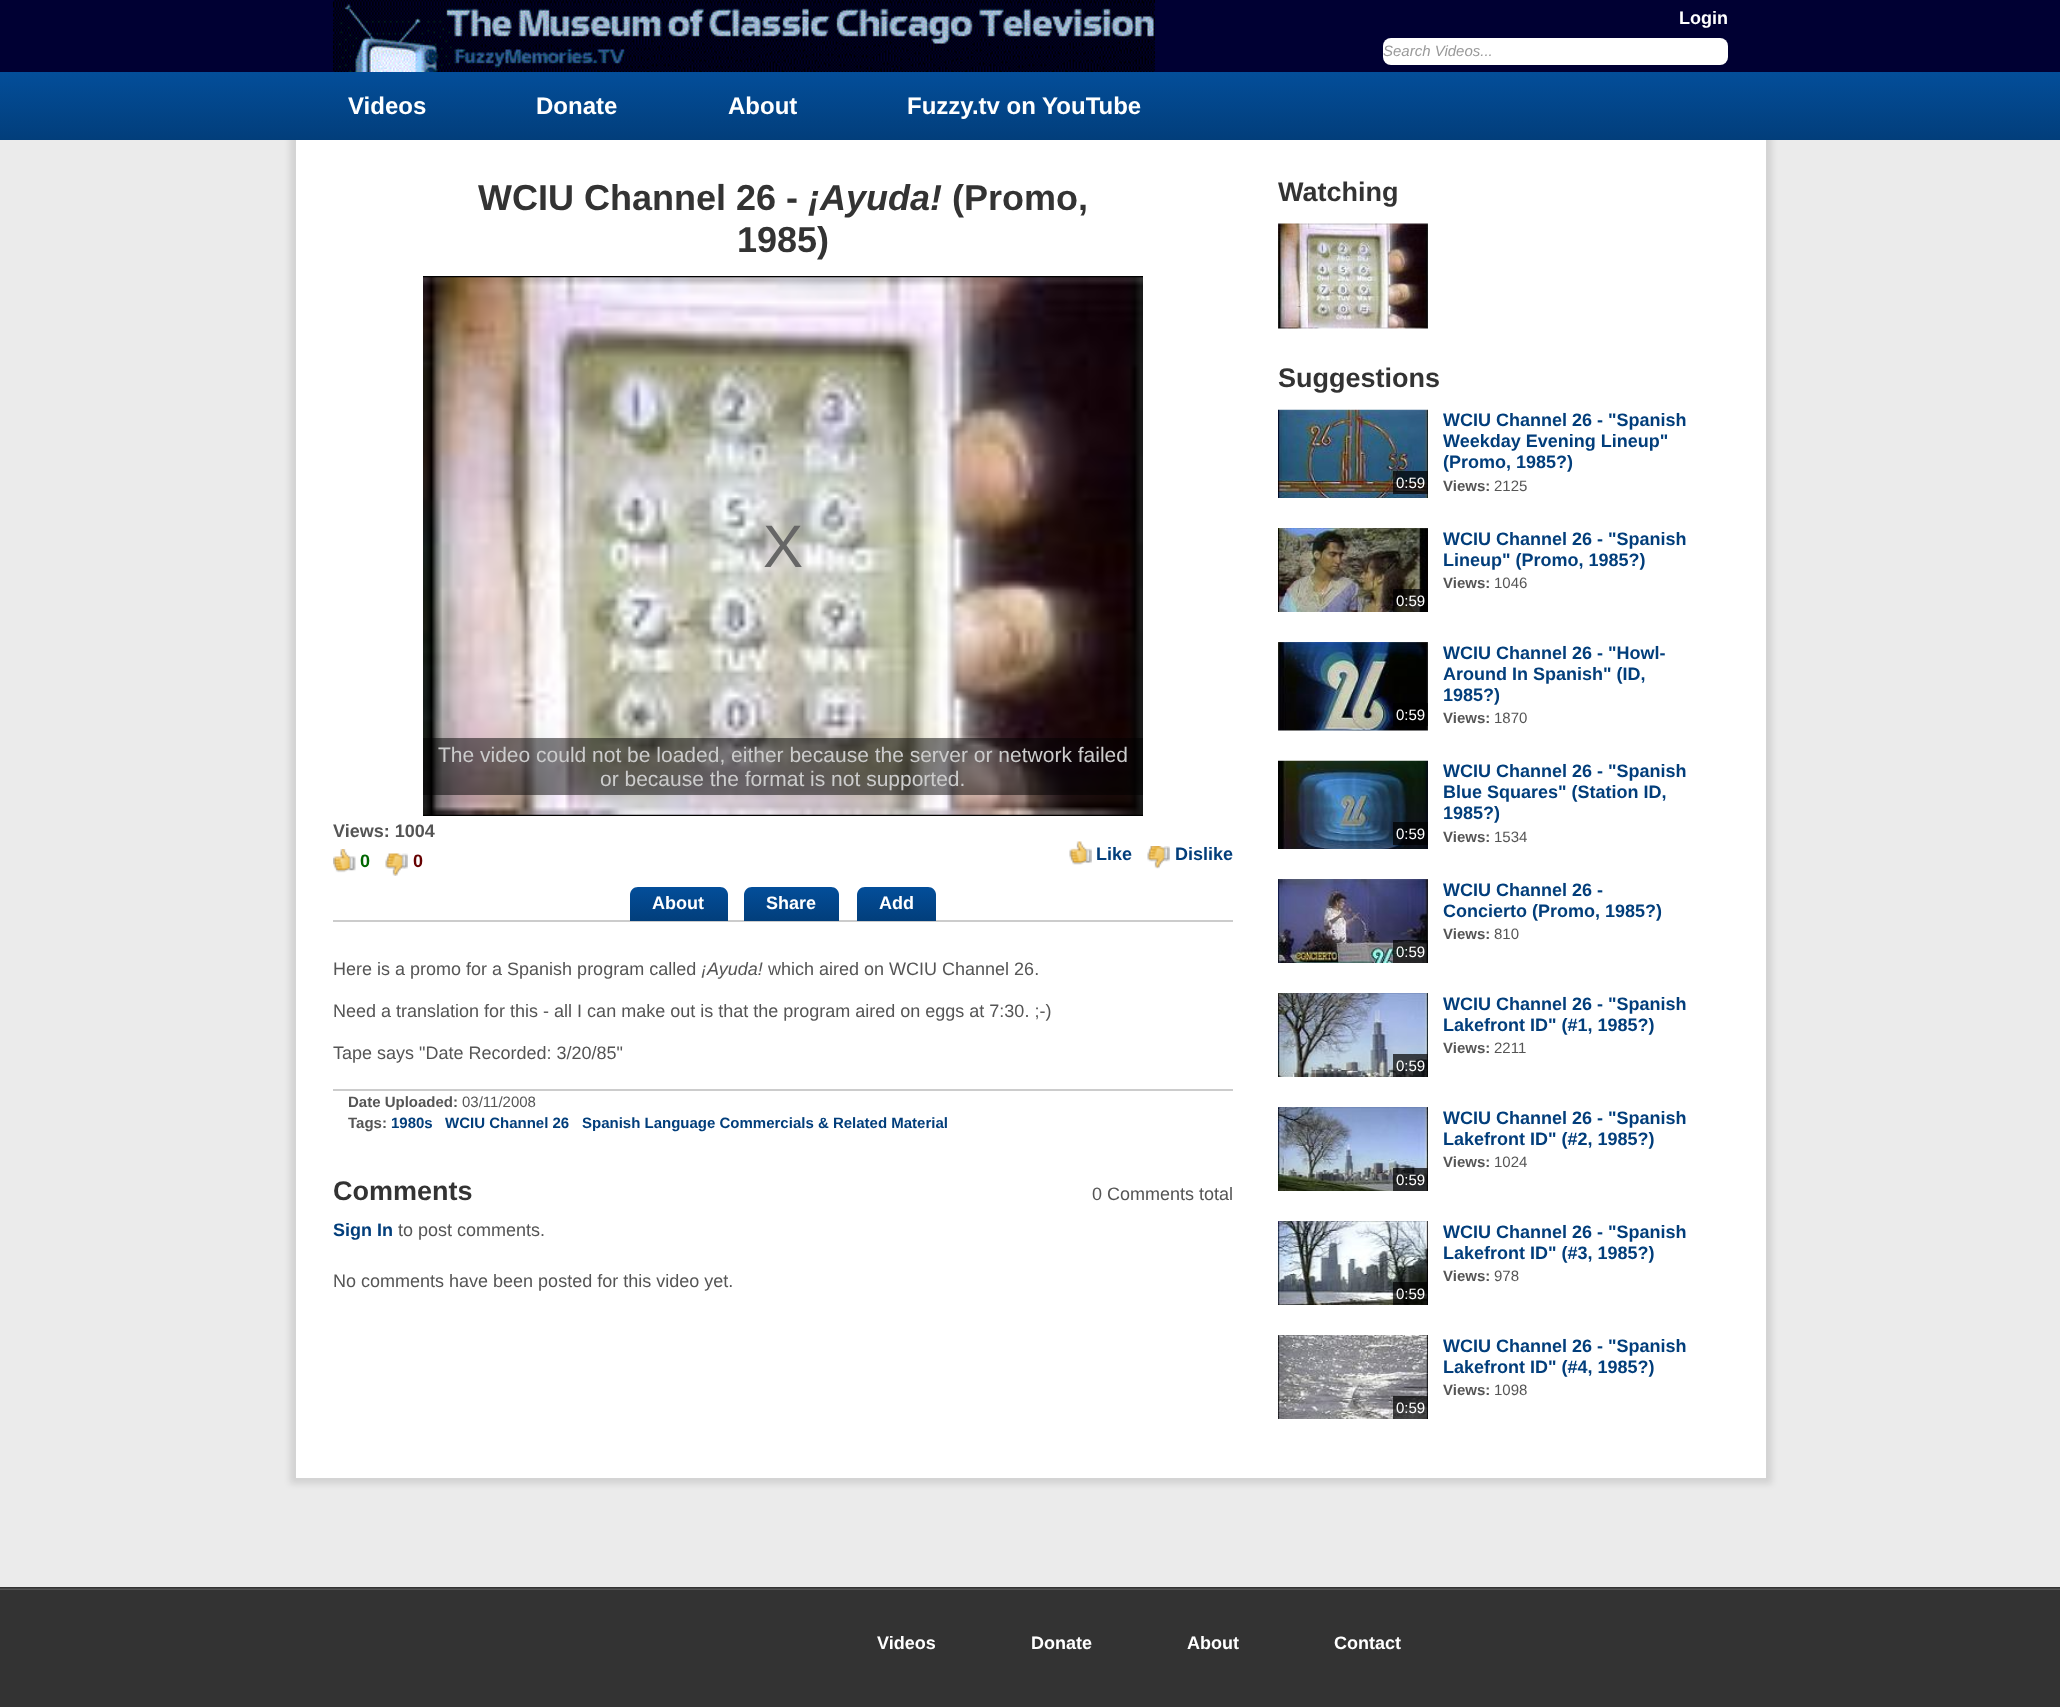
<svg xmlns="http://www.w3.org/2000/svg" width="2060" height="1707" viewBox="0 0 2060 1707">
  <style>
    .t1 { font: bold 18px Liberation Sans; fill: #fff; }
    .t2 { font: italic 15px Liberation Sans; fill: #999; }
    .t3 { font: bold 24px Liberation Sans; fill: #fff; }
    .t4 { font: bold 36px Liberation Sans; fill: #333; }
    .t5 { font: italic bold 36px Liberation Sans; fill: #333; }
    .t6 { font: 60px Liberation Sans; fill: #666; }
    .t7 { font: 21px Liberation Sans; fill: #ccc; }
    .t8 { font: bold 18px Liberation Sans; fill: #555; }
    .t9 { font: bold 18px Liberation Sans; fill: #060; }
    .t10 { font: bold 18px Liberation Sans; fill: #600; }
    .t11 { font: bold 18px Liberation Sans; fill: #023e7b; }
    .t12 { font: 18px Liberation Sans; fill: #555; }
    .t13 { font: italic 18px Liberation Sans; fill: #555; }
    .t14 { font: bold 15px Liberation Sans; fill: #555; }
    .t15 { font: 15px Liberation Sans; fill: #555; }
    .t16 { font: bold 15px Liberation Sans; fill: #023e7b; }
    .t17 { font: bold 27px Liberation Sans; fill: #333; }
    .t18 { font: 15px Liberation Sans; fill: #fff; }
  </style>
  <defs>
    <linearGradient id="g1" gradientUnits="userSpaceOnUse" x1="1031" y1="72" x2="1031" y2="140"><stop offset="0" stop-color="#034e9a"/><stop offset="1" stop-color="#023e7b"/></linearGradient>
    <linearGradient id="g2" gradientUnits="userSpaceOnUse" x1="679" y1="887" x2="679" y2="921"><stop offset="0" stop-color="#034e9a"/><stop offset="1" stop-color="#023e7b"/></linearGradient>
    <linearGradient id="g3" gradientUnits="userSpaceOnUse" x1="791" y1="887" x2="791" y2="921"><stop offset="0" stop-color="#034e9a"/><stop offset="1" stop-color="#023e7b"/></linearGradient>
    <linearGradient id="g4" gradientUnits="userSpaceOnUse" x1="896" y1="887" x2="896" y2="921"><stop offset="0" stop-color="#034e9a"/><stop offset="1" stop-color="#023e7b"/></linearGradient>
  </defs>
  <rect width="100%" height="100%" fill="#ebebeb"/>
  <rect x="0" y="0" width="2060" height="72" fill="#003"/>
  <image x="333" y="0" width="822" height="72" href="images/1.png"/>
  <text x="1679" y="24" class="t1">Login</text>
  <rect x="1383" y="38" width="345" height="27" rx="8" fill="#fff"/>
  <text x="1383" y="56" class="t2">Search Videos...</text>
  <rect x="290" y="126" width="1482" height="1358" fill="#0101011a" filter="blur(3px)"/>
  <rect x="0" y="72" width="2060" height="68" fill="url(#g1)"/>
  <text x="348" y="114" class="t3">Videos</text>
  <text x="536" y="114" class="t3">Donate</text>
  <text x="728" y="114" class="t3">About</text>
  <text x="907" y="114" class="t3">Fuzzy.tv on YouTube</text>
  <rect x="296" y="140" width="1470" height="1338" fill="#fff"/>
  <text x="478" y="210" class="t4">WCIU Channel 26 -</text>
  <text x="808" y="210" class="t5">¡Ayuda!</text>
  <text x="952" y="210" class="t4">(Promo,</text>
  <text x="737" y="252" class="t4">1985)</text>
  <rect x="423" y="276" width="720" height="540" fill="#000"/>
  <image x="423" y="277" width="720" height="538" href="images/2.png"/>
  <image x="423" y="277" width="720" height="538" href="images/3.png"/>
  <text x="763" y="567" class="t6">X</text>
  <rect x="423" y="738" width="720" height="57" fill="#00000080"/>
  <text x="438" y="762" class="t7">The video could not be loaded, either because the server or network failed</text>
  <text x="600" y="786" class="t7">or because the format is not supported.</text>
  <text x="333" y="837" class="t8">Views: 1004</text>
  <image x="333" y="849" width="23" height="24" href="images/4.png"/>
  <text x="360" y="867" class="t9">0</text>
  <image x="385" y="853" width="23" height="23" href="images/5.png"/>
  <text x="413" y="867" class="t10">0</text>
  <image x="1069" y="841" width="23" height="24" href="images/6.png"/>
  <text x="1096" y="860" class="t11">Like</text>
  <image x="1147" y="846" width="23" height="23" href="images/7.png"/>
  <text x="1175" y="860" class="t11">Dislike</text>
  <rect x="333" y="920" width="900" height="2" fill="#ccc"/>
  <path d="M638 887H720C724.5 887 728 890.5 728 895V921H630V895C630 890.5 633.5 887 638 887Z" fill="url(#g2)"/>
  <text x="652" y="909" class="t1">About</text>
  <path d="M752 887H831C835.5 887 839 890.5 839 895V921H744V895C744 890.5 747.5 887 752 887Z" fill="url(#g3)"/>
  <text x="766" y="909" class="t1">Share</text>
  <path d="M865 887H928C932.5 887 936 890.5 936 895V921H857V895C857 890.5 860.5 887 865 887Z" fill="url(#g4)"/>
  <text x="879" y="909" class="t1">Add</text>
  <rect x="333" y="1089" width="900" height="2" fill="#ccc"/>
  <text x="333" y="975" class="t12">Here is a promo for a Spanish program called</text>
  <text x="701" y="975" class="t13">¡Ayuda!</text>
  <text x="768" y="975" class="t12">which aired on WCIU Channel 26.</text>
  <text x="333" y="1017" class="t12">Need a translation for this - all I can make out is that the program aired on eggs at 7:30. ;-)</text>
  <text x="333" y="1059" class="t12">Tape says "Date Recorded: 3/20/85"</text>
  <text x="348" y="1107" class="t14">Date Uploaded:</text>
  <text x="462" y="1107" class="t15">03/11/2008</text>
  <text x="348" y="1128" class="t14">Tags:</text>
  <text x="391" y="1128" class="t16">1980s</text>
  <text x="445" y="1128" class="t16">WCIU Channel 26</text>
  <text x="582" y="1128" class="t16">Spanish Language Commercials &amp; Related Material</text>
  <text x="333" y="1200" class="t17">Comments</text>
  <text x="1092" y="1200" class="t12">0 Comments total</text>
  <text x="333" y="1236" class="t11">Sign In</text>
  <text x="398" y="1236" class="t12">to post comments.</text>
  <text x="333" y="1287" class="t12">No comments have been posted for this video yet.</text>
  <text x="1278" y="201" class="t17">Watching</text>
  <image x="1278" y="223" width="150" height="106" href="images/8.png"/>
  <text x="1278" y="387" class="t17">Suggestions</text>
  <image x="1278" y="409" width="150" height="89" href="images/9.png"/>
  <rect x="1393" y="471" width="35" height="23" fill="#000000b3"/>
  <text x="1396" y="488" class="t18">0:59</text>
  <text x="1443" y="426" class="t11">WCIU Channel 26 - "Spanish</text>
  <text x="1443" y="447" class="t11">Weekday Evening Lineup"</text>
  <text x="1443" y="468" class="t11">(Promo, 1985?)</text>
  <text x="1443" y="491" class="t14">Views:</text>
  <text x="1494" y="491" class="t15">2125</text>
  <text x="1443" y="545" class="t11">WCIU Channel 26 - "Spanish</text>
  <text x="1443" y="566" class="t11">Lineup" (Promo, 1985?)</text>
  <text x="1443" y="588" class="t14">Views:</text>
  <text x="1494" y="588" class="t15">1046</text>
  <image x="1278" y="528" width="150" height="84" href="images/10.png"/>
  <rect x="1393" y="589" width="35" height="23" fill="#000000b3"/>
  <text x="1396" y="606" class="t18">0:59</text>
  <image x="1278" y="642" width="150" height="89" href="images/11.png"/>
  <rect x="1393" y="703" width="35" height="23" fill="#000000b3"/>
  <text x="1396" y="720" class="t18">0:59</text>
  <text x="1443" y="659" class="t11">WCIU Channel 26 - "Howl-</text>
  <text x="1443" y="680" class="t11">Around In Spanish" (ID,</text>
  <text x="1443" y="701" class="t11">1985?)</text>
  <text x="1443" y="723" class="t14">Views:</text>
  <text x="1494" y="723" class="t15">1870</text>
  <image x="1278" y="760" width="150" height="89" href="images/12.png"/>
  <rect x="1393" y="822" width="35" height="23" fill="#000000b3"/>
  <text x="1396" y="839" class="t18">0:59</text>
  <text x="1443" y="777" class="t11">WCIU Channel 26 - "Spanish</text>
  <text x="1443" y="798" class="t11">Blue Squares" (Station ID,</text>
  <text x="1443" y="819" class="t11">1985?)</text>
  <text x="1443" y="842" class="t14">Views:</text>
  <text x="1494" y="842" class="t15">1534</text>
  <text x="1443" y="896" class="t11">WCIU Channel 26 -</text>
  <text x="1443" y="917" class="t11">Concierto (Promo, 1985?)</text>
  <text x="1443" y="939" class="t14">Views:</text>
  <text x="1494" y="939" class="t15">810</text>
  <image x="1278" y="879" width="150" height="84" href="images/13.png"/>
  <rect x="1393" y="940" width="35" height="23" fill="#000000b3"/>
  <text x="1396" y="957" class="t18">0:59</text>
  <text x="1443" y="1010" class="t11">WCIU Channel 26 - "Spanish</text>
  <text x="1443" y="1031" class="t11">Lakefront ID" (#1, 1985?)</text>
  <text x="1443" y="1053" class="t14">Views:</text>
  <text x="1494" y="1053" class="t15">2211</text>
  <image x="1278" y="993" width="150" height="84" href="images/14.png"/>
  <rect x="1393" y="1054" width="35" height="23" fill="#000000b3"/>
  <text x="1396" y="1071" class="t18">0:59</text>
  <text x="1443" y="1124" class="t11">WCIU Channel 26 - "Spanish</text>
  <text x="1443" y="1145" class="t11">Lakefront ID" (#2, 1985?)</text>
  <text x="1443" y="1167" class="t14">Views:</text>
  <text x="1494" y="1167" class="t15">1024</text>
  <image x="1278" y="1107" width="150" height="84" href="images/15.png"/>
  <rect x="1393" y="1168" width="35" height="23" fill="#000000b3"/>
  <text x="1396" y="1185" class="t18">0:59</text>
  <text x="1443" y="1238" class="t11">WCIU Channel 26 - "Spanish</text>
  <text x="1443" y="1259" class="t11">Lakefront ID" (#3, 1985?)</text>
  <text x="1443" y="1281" class="t14">Views:</text>
  <text x="1494" y="1281" class="t15">978</text>
  <image x="1278" y="1221" width="150" height="84" href="images/16.png"/>
  <rect x="1393" y="1282" width="35" height="23" fill="#000000b3"/>
  <text x="1396" y="1299" class="t18">0:59</text>
  <text x="1443" y="1352" class="t11">WCIU Channel 26 - "Spanish</text>
  <text x="1443" y="1373" class="t11">Lakefront ID" (#4, 1985?)</text>
  <text x="1443" y="1395" class="t14">Views:</text>
  <text x="1494" y="1395" class="t15">1098</text>
  <image x="1278" y="1335" width="150" height="84" href="images/17.png"/>
  <rect x="1393" y="1396" width="35" height="23" fill="#000000b3"/>
  <text x="1396" y="1413" class="t18">0:59</text>
  <rect x="0" y="1587" width="2060" height="120" fill="#333"/>
  <image x="0" y="1588" width="2060" height="2" href="images/18.png"/>
  <text x="877" y="1649" class="t1">Videos</text>
  <text x="1031" y="1649" class="t1">Donate</text>
  <text x="1187" y="1649" class="t1">About</text>
  <text x="1334" y="1649" class="t1">Contact</text>
</svg>
